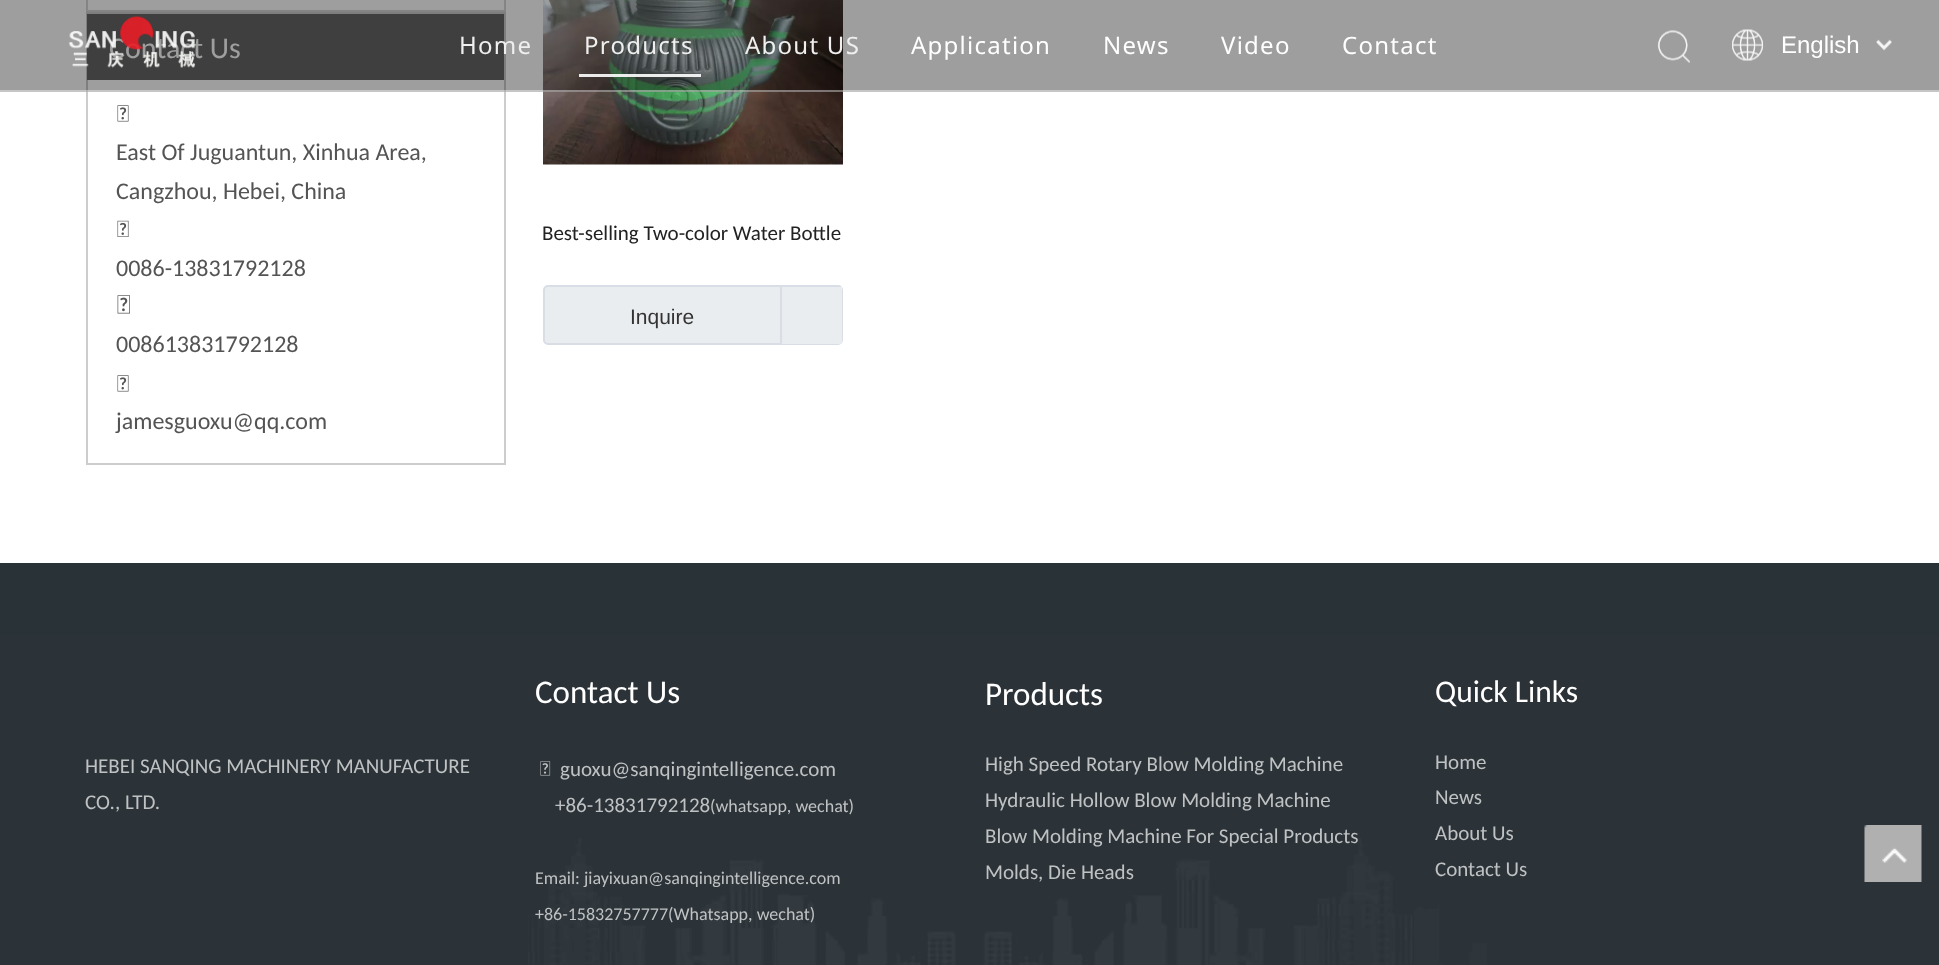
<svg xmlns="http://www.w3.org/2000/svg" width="1939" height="965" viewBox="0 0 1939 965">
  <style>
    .t1 { font: 30px Carlito; fill: #fff; }
    .t2 { font: 24px Noto Sans; letter-spacing: 1.25px; fill: #efefef; }
    .t3 { font: 24px Noto Sans; letter-spacing: 1.25px; fill: #fff; }
    .t4 { font: 24px Liberation Sans; fill: #fff; }
    .t5 { font: 24px Carlito; fill: #545454; }
    .t6 { font: 21px Carlito; fill: #222; }
    .t7 { font: 21px Liberation Sans; fill: #333; }
    .t8 { font: 21px Carlito; fill: #bfc2c3; }
    .t9 { font: 33px Carlito; fill: #fff; }
    .t10 { font: italic 21px Carlito; fill: #bfc2c3; }
    .t11 { font: 18px Carlito; fill: #bfc2c3; }
    .t12 { font: 31.5px Carlito; fill: #fff; }
  </style>
  <rect width="100%" height="100%" fill="#fff"/>
  <rect x="87" y="-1" width="418" height="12" fill="none" stroke="#d6d6d6" stroke-width="2"/>
  <rect x="87" y="13" width="418" height="451" fill="none" stroke="#ccc" stroke-width="2"/>
  <rect x="87" y="14" width="417" height="66" fill="#666"/>
  <text x="109" y="58" class="t1">Contact Us</text>
  <image x="543" y="0" width="300" height="165" href="images/8.png"/>
  <rect x="0" y="0" width="1939" height="92" fill="#00000061"/>
  <rect x="0" y="90" width="1939" height="2" fill="#ffffff69"/>
  <image x="68" y="16" width="128" height="52" href="images/1.png"/>
  <text x="459" y="54" class="t2">Home</text>
  <text x="584" y="54" class="t2">Products</text>
  <rect x="579" y="74" width="122" height="3" fill="#ffffffe6"/>
  <text x="745" y="54" class="t2">About US</text>
  <text x="911" y="54" class="t3">Application</text>
  <text x="1103" y="54" class="t3">News</text>
  <text x="1221" y="54" class="t3">Video</text>
  <text x="1342" y="54" class="t3">Contact</text>
  <image x="1657" y="30" width="33" height="33" href="images/2.png"/>
  <image x="1732" y="29" width="32" height="32" href="images/3.png"/>
  <text x="1781" y="53" class="t4">English</text>
  <image x="1876" y="39" width="16" height="12" href="images/4.png"/>
  <image x="117" y="105" width="12" height="17" href="images/5.png"/>
  <text x="116" y="160" class="t5">East Of Juguantun, Xinhua Area,</text>
  <text x="116" y="199" class="t5">Cangzhou, Hebei, China</text>
  <image x="117" y="220" width="12" height="17" href="images/6.png"/>
  <text x="116" y="276" class="t5">0086-13831792128</text>
  <image x="117" y="295" width="13" height="19" href="images/7.png"/>
  <text x="116" y="352" class="t5">008613831792128</text>
  <image x="117" y="375" width="12" height="17" href="images/5.png"/>
  <text x="116" y="429" class="t5">jamesguoxu@qq.com</text>
  <text x="542" y="240" class="t6">Best-selling Two-color Water Bottle</text>
  <rect x="544" y="286" width="298" height="58" rx="4" fill="#eaedef" stroke="#d8dde6" stroke-width="2"/>
  <text x="630" y="324" class="t7">Inquire</text>
  <rect x="782" y="287" width="60" height="57" fill="#eaedef"/>
  <rect x="780" y="287" width="2" height="57" fill="#d8dde6"/>
  <rect x="0" y="563" width="1939" height="72" fill="#293237"/>
  <rect x="0" y="635" width="1939" height="330" fill="#2b3238"/>
  <image x="528" y="838" width="959" height="127" href="images/9.png"/>
  <text x="85" y="773" class="t8">HEBEI SANQING MACHINERY MANUFACTURE</text>
  <text x="85" y="809" class="t8">CO., LTD.</text>
  <text x="535" y="703" class="t9">Contact Us</text>
  <image x="540" y="761" width="11" height="15" href="images/10.png"/>
  <text x="560" y="776" class="t8">guoxu@sanqingintelligence.com</text>
  <text x="535" y="812" class="t10"></text>
  <text x="555" y="812" class="t8">+86-13831792128</text>
  <text x="710" y="812" class="t11">(whatsapp, wechat)</text>
  <text x="535" y="884" class="t11">Email: jiayixuan@sanqingintelligence.com</text>
  <text x="535" y="920" class="t11">+86-15832757777(Whatsapp, wechat)</text>
  <text x="985" y="705" class="t9">Products</text>
  <text x="985" y="771" class="t8">High Speed Rotary Blow Molding Machine</text>
  <text x="985" y="807" class="t8">Hydraulic Hollow Blow Molding Machine</text>
  <text x="985" y="843" class="t8">Blow Molding Machine For Special Products</text>
  <text x="985" y="879" class="t8">Molds, Die Heads</text>
  <text x="1435" y="702" class="t12">Quick Links</text>
  <text x="1435" y="769" class="t8">Home</text>
  <text x="1435" y="804" class="t8">News</text>
  <text x="1435" y="840" class="t8">About Us</text>
  <text x="1435" y="876" class="t8">Contact Us</text>
  <image x="1864" y="825" width="58" height="57" href="images/11.png"/>
</svg>
